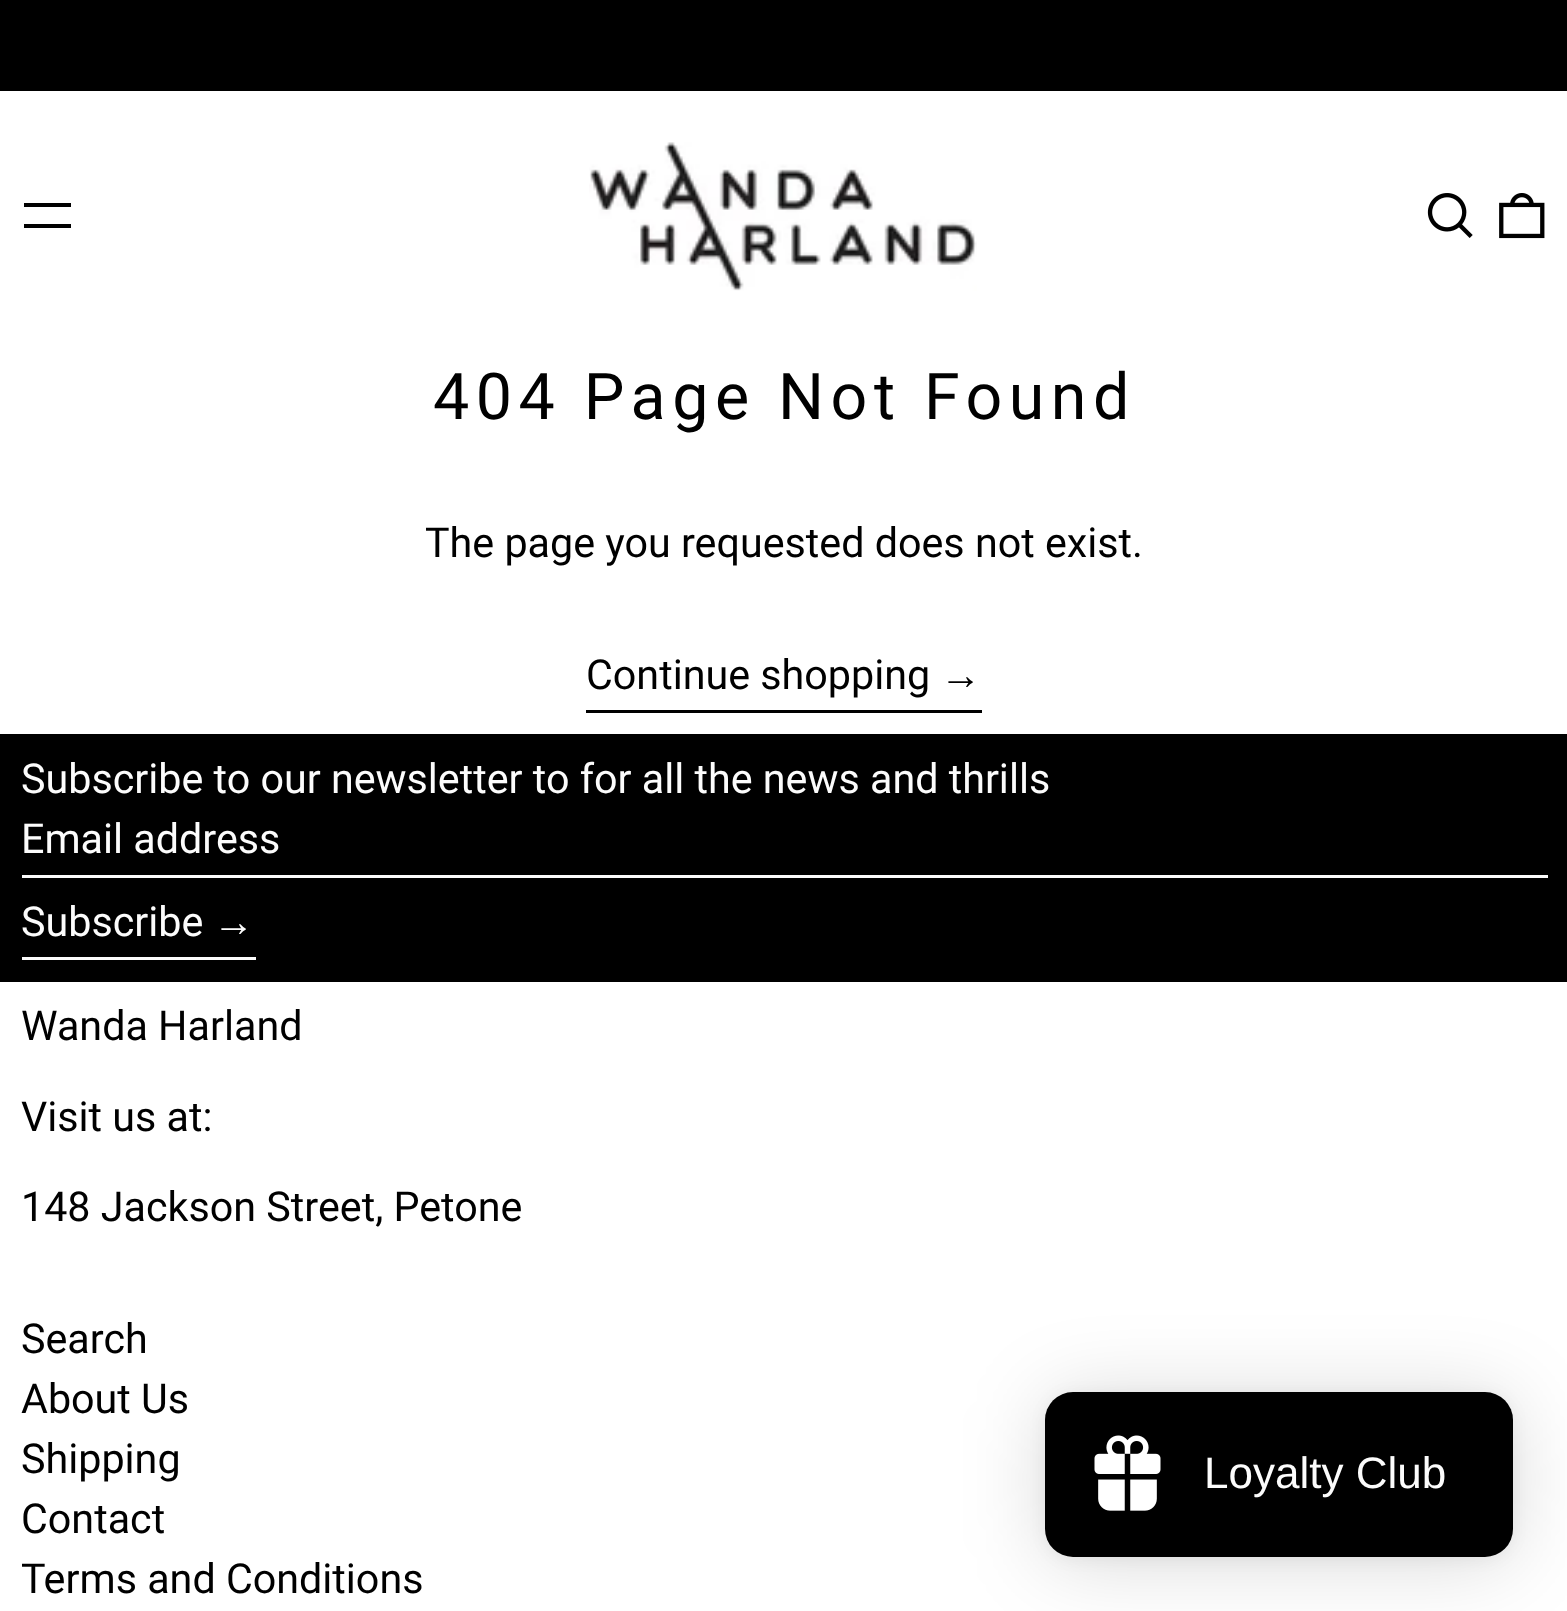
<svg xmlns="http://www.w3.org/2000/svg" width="1567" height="1611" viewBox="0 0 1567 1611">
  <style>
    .t1 { font: 64.5px Roboto; letter-spacing: 6.5px; fill: #000; }
    .t2 { font: 41.25px Roboto; fill: #000; }
    .t3 { font: 41.25px Liberation Sans; fill: #000; }
    .t4 { font: 41.25px Roboto; fill: #fcfcfc; }
    .t5 { font: 41.25px Liberation Sans; fill: #fcfcfc; }
    .t6 { font: 44px Liberation Sans; fill: #fcfcfc; }
  </style>
  <rect width="100%" height="100%" fill="#fff"/>
  <rect x="0" y="0" width="1567" height="91" fill="#000"/>
  <path d="M71 224V228H24V224ZM71 203V207H24V203Z" fill="#000" fill-rule="evenodd"/>
  <image x="589" y="142" width="388" height="149" href="images/1.png"/>
  <image x="1427" y="193" width="46" height="45" href="images/2.png"/>
  <image x="1499" y="193" width="46" height="46" href="images/3.png"/>
  <text x="433" y="419" class="t1">404 Page Not Found</text>
  <text x="425" y="557" class="t2">The page you requested does not exist.</text>
  <rect x="586" y="710" width="396" height="3" fill="#000"/>
  <text x="586" y="689" class="t2">Continue shopping</text>
  <text x="940" y="689" class="t3">→</text>
  <rect x="0" y="734" width="1567" height="248" fill="#000"/>
  <text x="21" y="793" class="t4">Subscribe to our newsletter to for all the news and thrills</text>
  <rect x="22" y="875" width="1526" height="3" fill="#fcfcfc"/>
  <text x="21" y="853" class="t4">Email address</text>
  <rect x="22" y="957" width="234" height="3" fill="#fcfcfc"/>
  <text x="21" y="936" class="t4">Subscribe</text>
  <text x="213" y="936" class="t5">→</text>
  <text x="21" y="1040" class="t2">Wanda Harland</text>
  <text x="21" y="1131" class="t2">Visit us at:</text>
  <text x="21" y="1221" class="t2">148 Jackson Street, Petone</text>
  <text x="21" y="1353" class="t2">Search</text>
  <text x="21" y="1413" class="t2">About Us</text>
  <text x="21" y="1473" class="t2">Shipping</text>
  <text x="21" y="1533" class="t2">Contact</text>
  <text x="21" y="1593" class="t2">Terms and Conditions</text>
  <rect x="1045" y="1397" width="468" height="165" rx="28" fill="#00000026" filter="blur(41px)"/>
  <rect x="1045" y="1394" width="468" height="165" rx="28" fill="#0000000d" filter="blur(8px)"/>
  <rect x="1045" y="1392" width="468" height="165" rx="28" fill="#000"/>
  <image x="1094" y="1435" width="67" height="76" href="images/4.png"/>
  <text x="1204" y="1488" class="t6">Loyalty Club</text>
</svg>
